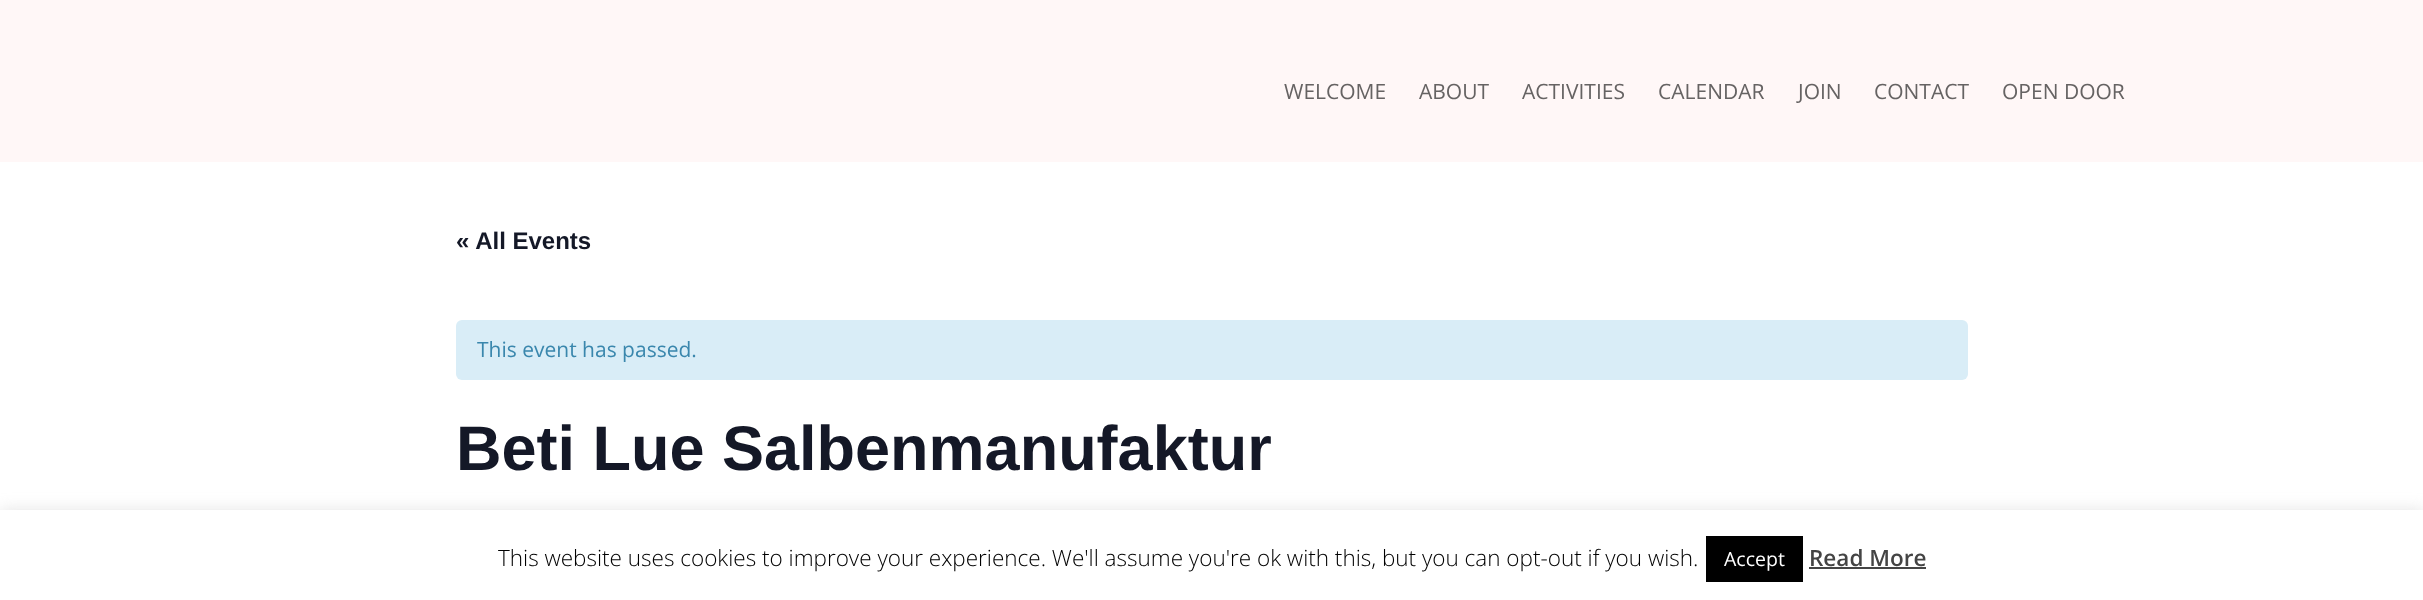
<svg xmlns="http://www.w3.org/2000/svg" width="2423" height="600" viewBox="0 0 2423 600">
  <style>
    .t1 { font: 21px Open Sans; fill: #666363; }
    .t2 { font: bold 24px Liberation Sans; fill: #141827; }
    .t3 { font: 21px Open Sans; fill: #3a87ad; }
    .t4 { font: bold 63px Liberation Sans; fill: #141827; }
    .t5 { font: 300 22.5px Open Sans; fill: #000; }
    .t6 { font: 19.5px Open Sans; fill: #fff; }
    .t7 { font: 600 22.5px Open Sans; fill: #444; }
  </style>
  <rect width="100%" height="100%" fill="#fff"/>
  <rect x="0" y="0" width="2423" height="162" fill="#fff7f7"/>
  <text x="1284" y="99" class="t1">WELCOME</text>
  <text x="1419" y="99" class="t1">ABOUT</text>
  <text x="1522" y="99" class="t1">ACTIVITIES</text>
  <text x="1658" y="99" class="t1">CALENDAR</text>
  <text x="1798" y="99" class="t1">JOIN</text>
  <text x="1874" y="99" class="t1">CONTACT</text>
  <text x="2002" y="99" class="t1">OPEN DOOR</text>
  <text x="456" y="249" class="t2">« All Events</text>
  <rect x="456" y="320" width="1512" height="60" rx="6" fill="#d9edf7"/>
  <text x="477" y="357" class="t3">This event has passed.</text>
  <text x="456" y="470" class="t4">Beti Lue Salbenmanufaktur</text>
  <rect x="0" y="509" width="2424" height="90" fill="#acabab4d" filter="blur(7.5px)"/>
  <rect x="0" y="510" width="2423" height="90" fill="#fff"/>
  <text x="498" y="566" class="t5">This website uses cookies to improve your experience. We'll assume you're ok with this, but you can opt-out if you wish.</text>
  <rect x="1706" y="536" width="97" height="46" fill="#000"/>
  <text x="1724" y="566" class="t6">Accept</text>
  <text x="1809" y="566" class="t7">Read More</text>
  <rect x="1809" y="567" width="117" height="2" fill="#444"/>
</svg>
